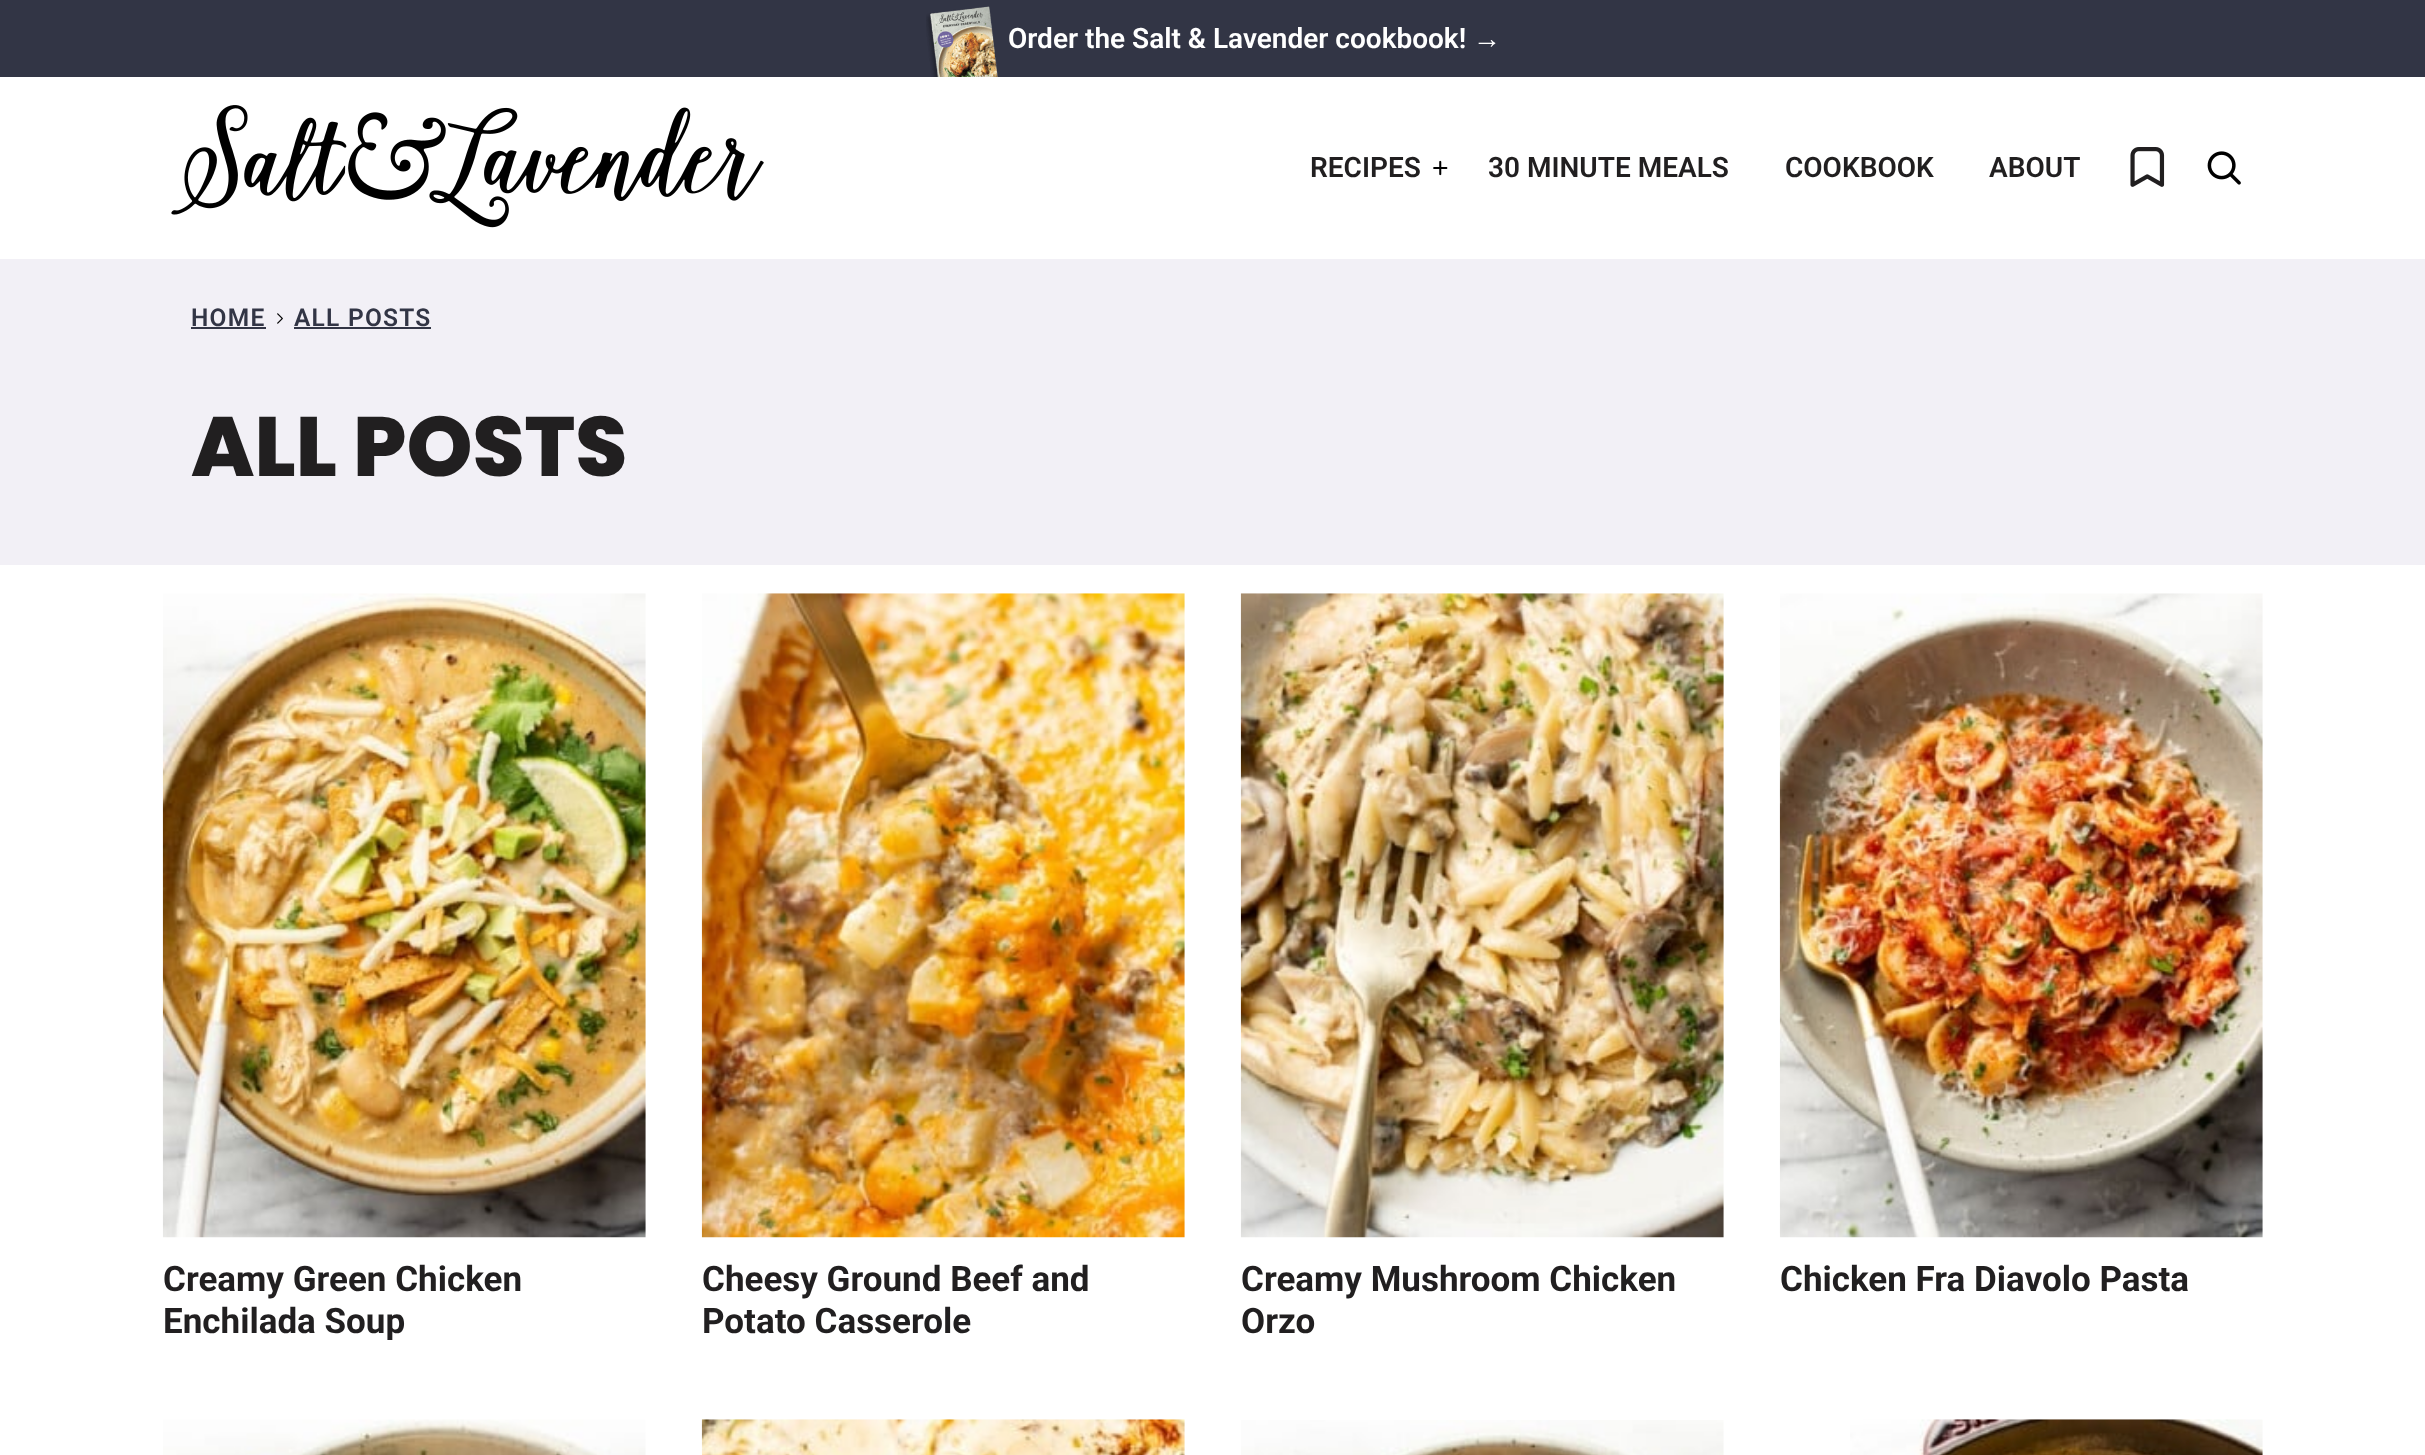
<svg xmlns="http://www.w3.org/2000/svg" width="2425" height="1455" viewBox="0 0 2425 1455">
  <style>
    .t1 { font: 600 28px Roboto; fill: #fff; }
    .t2 { font: bold 28px Liberation Sans; fill: #fff; }
    .t3 { font: 600 28px Roboto; fill: #211f20; }
    .t4 { font: 600 24.5px Roboto; letter-spacing: 1.25px; fill: #323545; }
    .t5 { font: 800 84px Poppins; fill: #211f20; }
    .t6 { font: bold 35px Roboto; fill: #211f20; }
  </style>
  <rect width="100%" height="100%" fill="#fff"/>
  <rect x="0" y="0" width="2425" height="77" fill="#323545"/>
  <image x="926" y="6" width="72" height="71" href="images/1.png"/>
  <text x="1008" y="48" class="t1">Order the Salt &amp; Lavender cookbook!</text>
  <text x="1473" y="48" class="t2">→</text>
  <image x="171" y="105" width="593" height="123" href="images/2.png"/>
  <text x="1310" y="177" class="t3">RECIPES</text>
  <image x="1433" y="160" width="15" height="16" href="images/3.png"/>
  <text x="1488" y="177" class="t3">30 MINUTE MEALS</text>
  <text x="1785" y="177" class="t3">COOKBOOK</text>
  <text x="1989" y="177" class="t3">ABOUT</text>
  <image x="2130" y="147" width="35" height="40" href="images/4.png"/>
  <image x="2207" y="151" width="34" height="34" href="images/5.png"/>
  <rect x="0" y="259" width="2425" height="306" fill="#f2f0f6"/>
  <text x="191" y="326" class="t4">HOME</text>
  <rect x="191" y="327" width="75" height="2" fill="#323545"/>
  <image x="277" y="313" width="6" height="11" href="images/6.png"/>
  <text x="294" y="326" class="t4">ALL POSTS</text>
  <rect x="294" y="327" width="137" height="2" fill="#323545"/>
  <text x="191" y="476" class="t5">ALL POSTS</text>
  <image x="162" y="593" width="484" height="645" href="images/7.png"/>
  <text x="163" y="1291" class="t6">Creamy Green Chicken</text>
  <text x="163" y="1333" class="t6">Enchilada Soup</text>
  <image x="701" y="593" width="484" height="645" href="images/8.png"/>
  <text x="702" y="1291" class="t6">Cheesy Ground Beef and</text>
  <text x="702" y="1333" class="t6">Potato Casserole</text>
  <image x="1240" y="593" width="484" height="645" href="images/9.png"/>
  <text x="1241" y="1291" class="t6">Creamy Mushroom Chicken</text>
  <text x="1241" y="1333" class="t6">Orzo</text>
  <image x="1779" y="593" width="484" height="645" href="images/10.png"/>
  <text x="1780" y="1291" class="t6">Chicken Fra Diavolo Pasta</text>
  <image x="163" y="1419" width="483" height="36" href="images/11.png"/>
  <image x="701" y="1419" width="484" height="36" href="images/12.png"/>
  <image x="1241" y="1420" width="483" height="35" href="images/13.png"/>
  <image x="1850" y="1419" width="413" height="36" href="images/14.png"/>
</svg>
